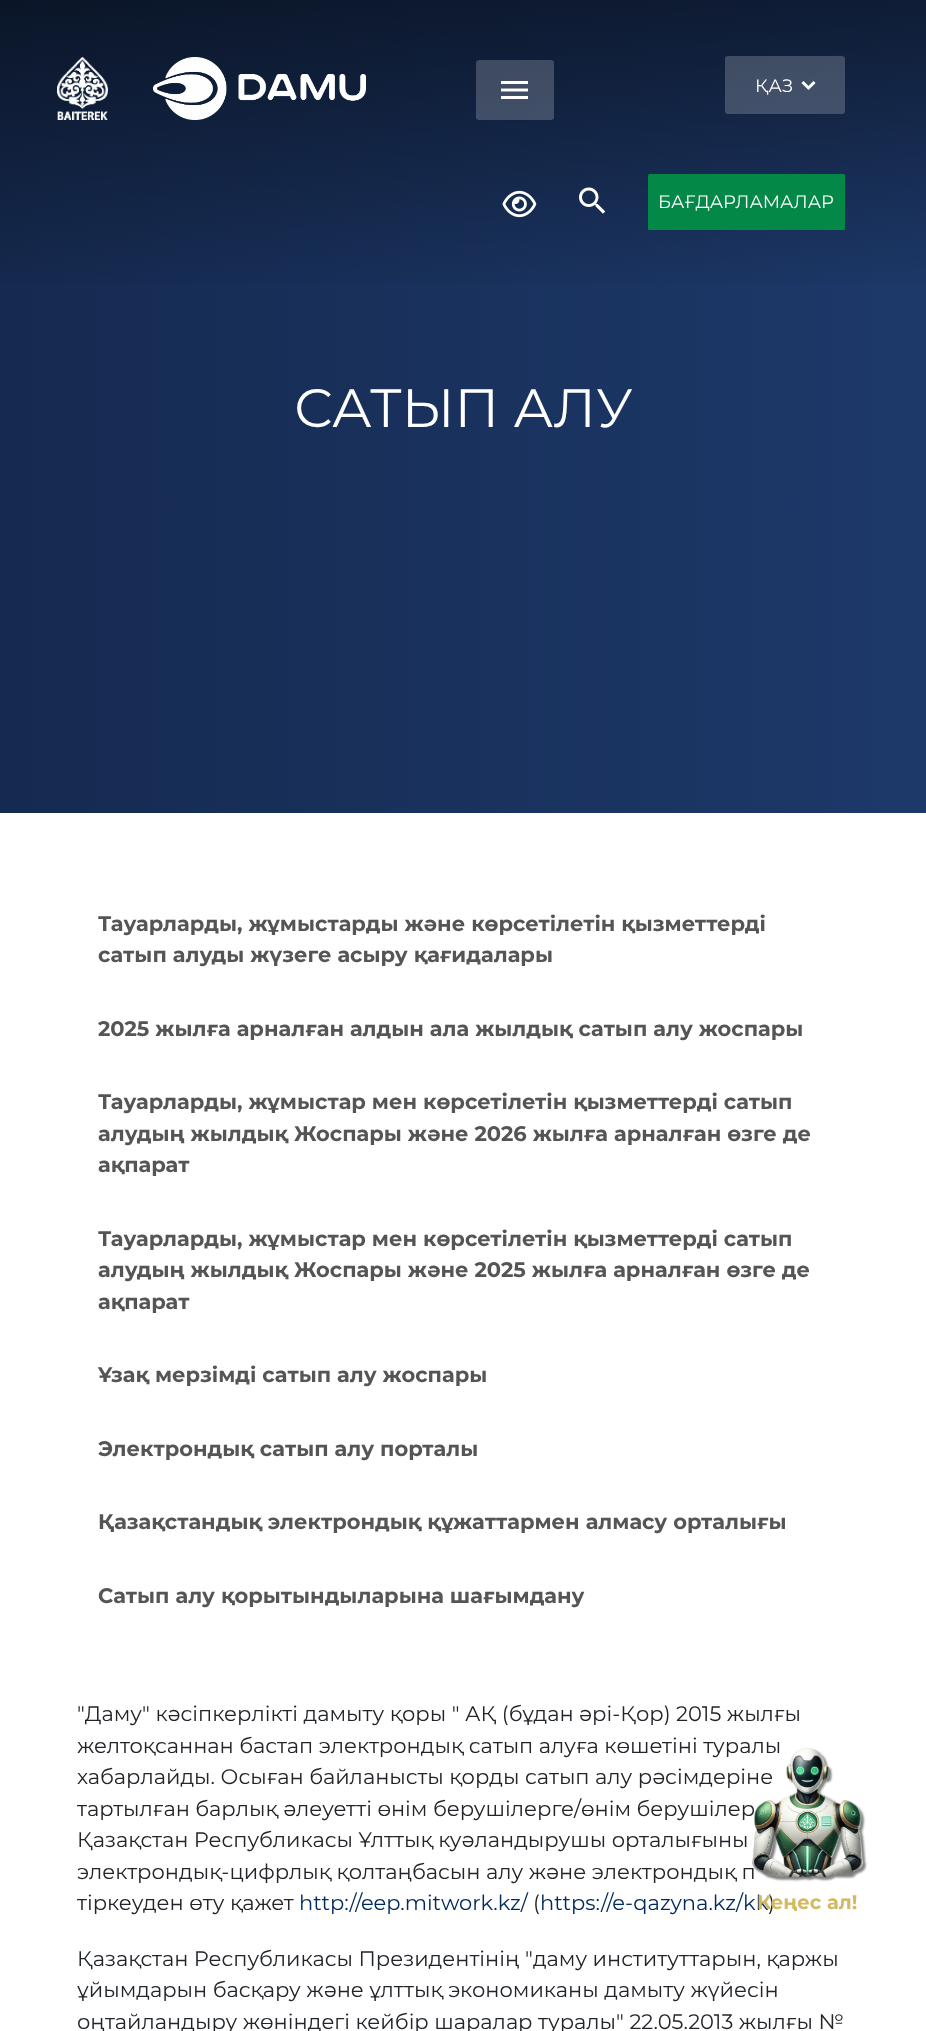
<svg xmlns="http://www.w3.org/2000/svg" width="926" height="2031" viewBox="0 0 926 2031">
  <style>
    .t1 { font: 18px Montserrat; fill: #fff; }
    .t2 { font: 54px Montserrat; fill: #fff; }
    .t3 { font: bold 21px Montserrat; fill: #555; }
    .t4 { font: 21px Montserrat; fill: #212529; }
    .t5 { font: 21px Montserrat; fill: #002a5c; }
    .t6 { font: bold 19.5px Montserrat; fill: #d3b961; }
  </style>
  <defs>
    <linearGradient id="g1" gradientUnits="userSpaceOnUse" x1="0" y1="407" x2="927" y2="407"><stop offset="0" stop-color="#152a50"/><stop offset="1" stop-color="#1d396a"/></linearGradient>
    <linearGradient id="g2" gradientUnits="userSpaceOnUse" x1="464" y1="299" x2="464" y2="0"><stop offset="0" stop-color="#000" stop-opacity="0"/><stop offset="1" stop-color="#000" stop-opacity="0.5"/></linearGradient>
  </defs>
  <rect width="100%" height="100%" fill="#fff"/>
  <rect x="0" y="0" width="926" height="813" fill="url(#g1)"/>
  <rect x="0" y="0" width="926" height="284" fill="url(#g2)"/>
  <image x="57" y="57" width="51" height="63" href="images/1.png"/>
  <image x="153" y="57" width="213" height="63" href="images/2.png"/>
  <rect x="476" y="60" width="78" height="60" rx="3" fill="#ffffff33"/>
  <image x="501" y="81" width="27" height="18" href="images/3.png"/>
  <rect x="725" y="56" width="120" height="58" rx="3" fill="#ffffff33"/>
  <path d="M802.5 82L808.5 88L814.5 82" fill="none" stroke="#fff" stroke-width="3"/>
  <text x="755" y="92" class="t1">ҚАЗ</text>
  <image x="502" y="190" width="35" height="28" href="images/4.png"/>
  <image x="579" y="187" width="27" height="27" href="images/5.png"/>
  <rect x="648" y="174" width="197" height="56" rx="1.5" fill="#048848"/>
  <text x="658" y="208" class="t1">БАҒДАРЛАМАЛАР</text>
  <text x="294" y="427" class="t2">САТЫП АЛУ</text>
  <text x="98" y="931" class="t3">Тауарларды, жұмыстарды және көрсетілетін қызметтерді</text>
  <text x="98" y="962" class="t3">сатып алуды жүзеге асыру қағидалары</text>
  <text x="98" y="1036" class="t3">2025 жылға арналған алдын ала жылдық сатып алу жоспары</text>
  <text x="98" y="1109" class="t3">Тауарларды, жұмыстар мен көрсетілетін қызметтерді сатып</text>
  <text x="98" y="1141" class="t3">алудың жылдық Жоспары және 2026 жылға арналған өзге де</text>
  <text x="98" y="1172" class="t3">ақпарат</text>
  <text x="98" y="1246" class="t3">Тауарларды, жұмыстар мен көрсетілетін қызметтерді сатып</text>
  <text x="98" y="1277" class="t3">алудың жылдық Жоспары және 2025 жылға арналған өзге де</text>
  <text x="98" y="1309" class="t3">ақпарат</text>
  <text x="98" y="1382" class="t3">Ұзақ мерзімді сатып алу жоспары</text>
  <text x="98" y="1456" class="t3">Электрондық сатып алу порталы</text>
  <text x="98" y="1529" class="t3">Қазақстандық электрондық құжаттармен алмасу орталығы</text>
  <text x="98" y="1603" class="t3">Сатып алу қорытындыларына шағымдану</text>
  <text x="77" y="1721" class="t4">"Даму" кәсіпкерлікті дамыту қоры " АҚ (бұдан әрі-Қор) 2015 жылғы</text>
  <text x="77" y="1753" class="t4">желтоқсаннан бастап электрондық сатып алуға көшетіні туралы</text>
  <text x="77" y="1784" class="t4">хабарлайды. Осыған байланысты қорды сатып алу рәсімдеріне</text>
  <text x="77" y="1816" class="t4">тартылған барлық әлеуетті өнім берушілерге/өнім берушілер</text>
  <text x="77" y="1847" class="t4">Қазақстан Республикасы Ұлттық куәландырушы орталығыны</text>
  <text x="77" y="1879" class="t4">электрондық-цифрлық қолтаңбасын алу және электрондық п</text>
  <text x="77" y="1910" class="t4">тіркеуден өту қажет</text>
  <text x="299" y="1910" class="t5">http://eep.mitwork.kz/</text>
  <text x="533" y="1910" class="t4">(</text>
  <text x="540" y="1910" class="t5">https://e-qazyna.kz/kk</text>
  <text x="768" y="1910" class="t4">)</text>
  <text x="77" y="1966" class="t4">Қазақстан Республикасы Президентінің "даму институттарын, қаржы</text>
  <text x="77" y="1997" class="t4">ұйымдарын басқару және ұлттық экономиканы дамыту жүйесін</text>
  <text x="77" y="2029" class="t4">оңтайландыру жөніндегі кейбір шаралар туралы" 22.05.2013 жылғы №</text>
  <image x="752" y="1747" width="115" height="135" href="images/6.png"/>
  <text x="757" y="1909" class="t6">Кеңес ал!</text>
</svg>
